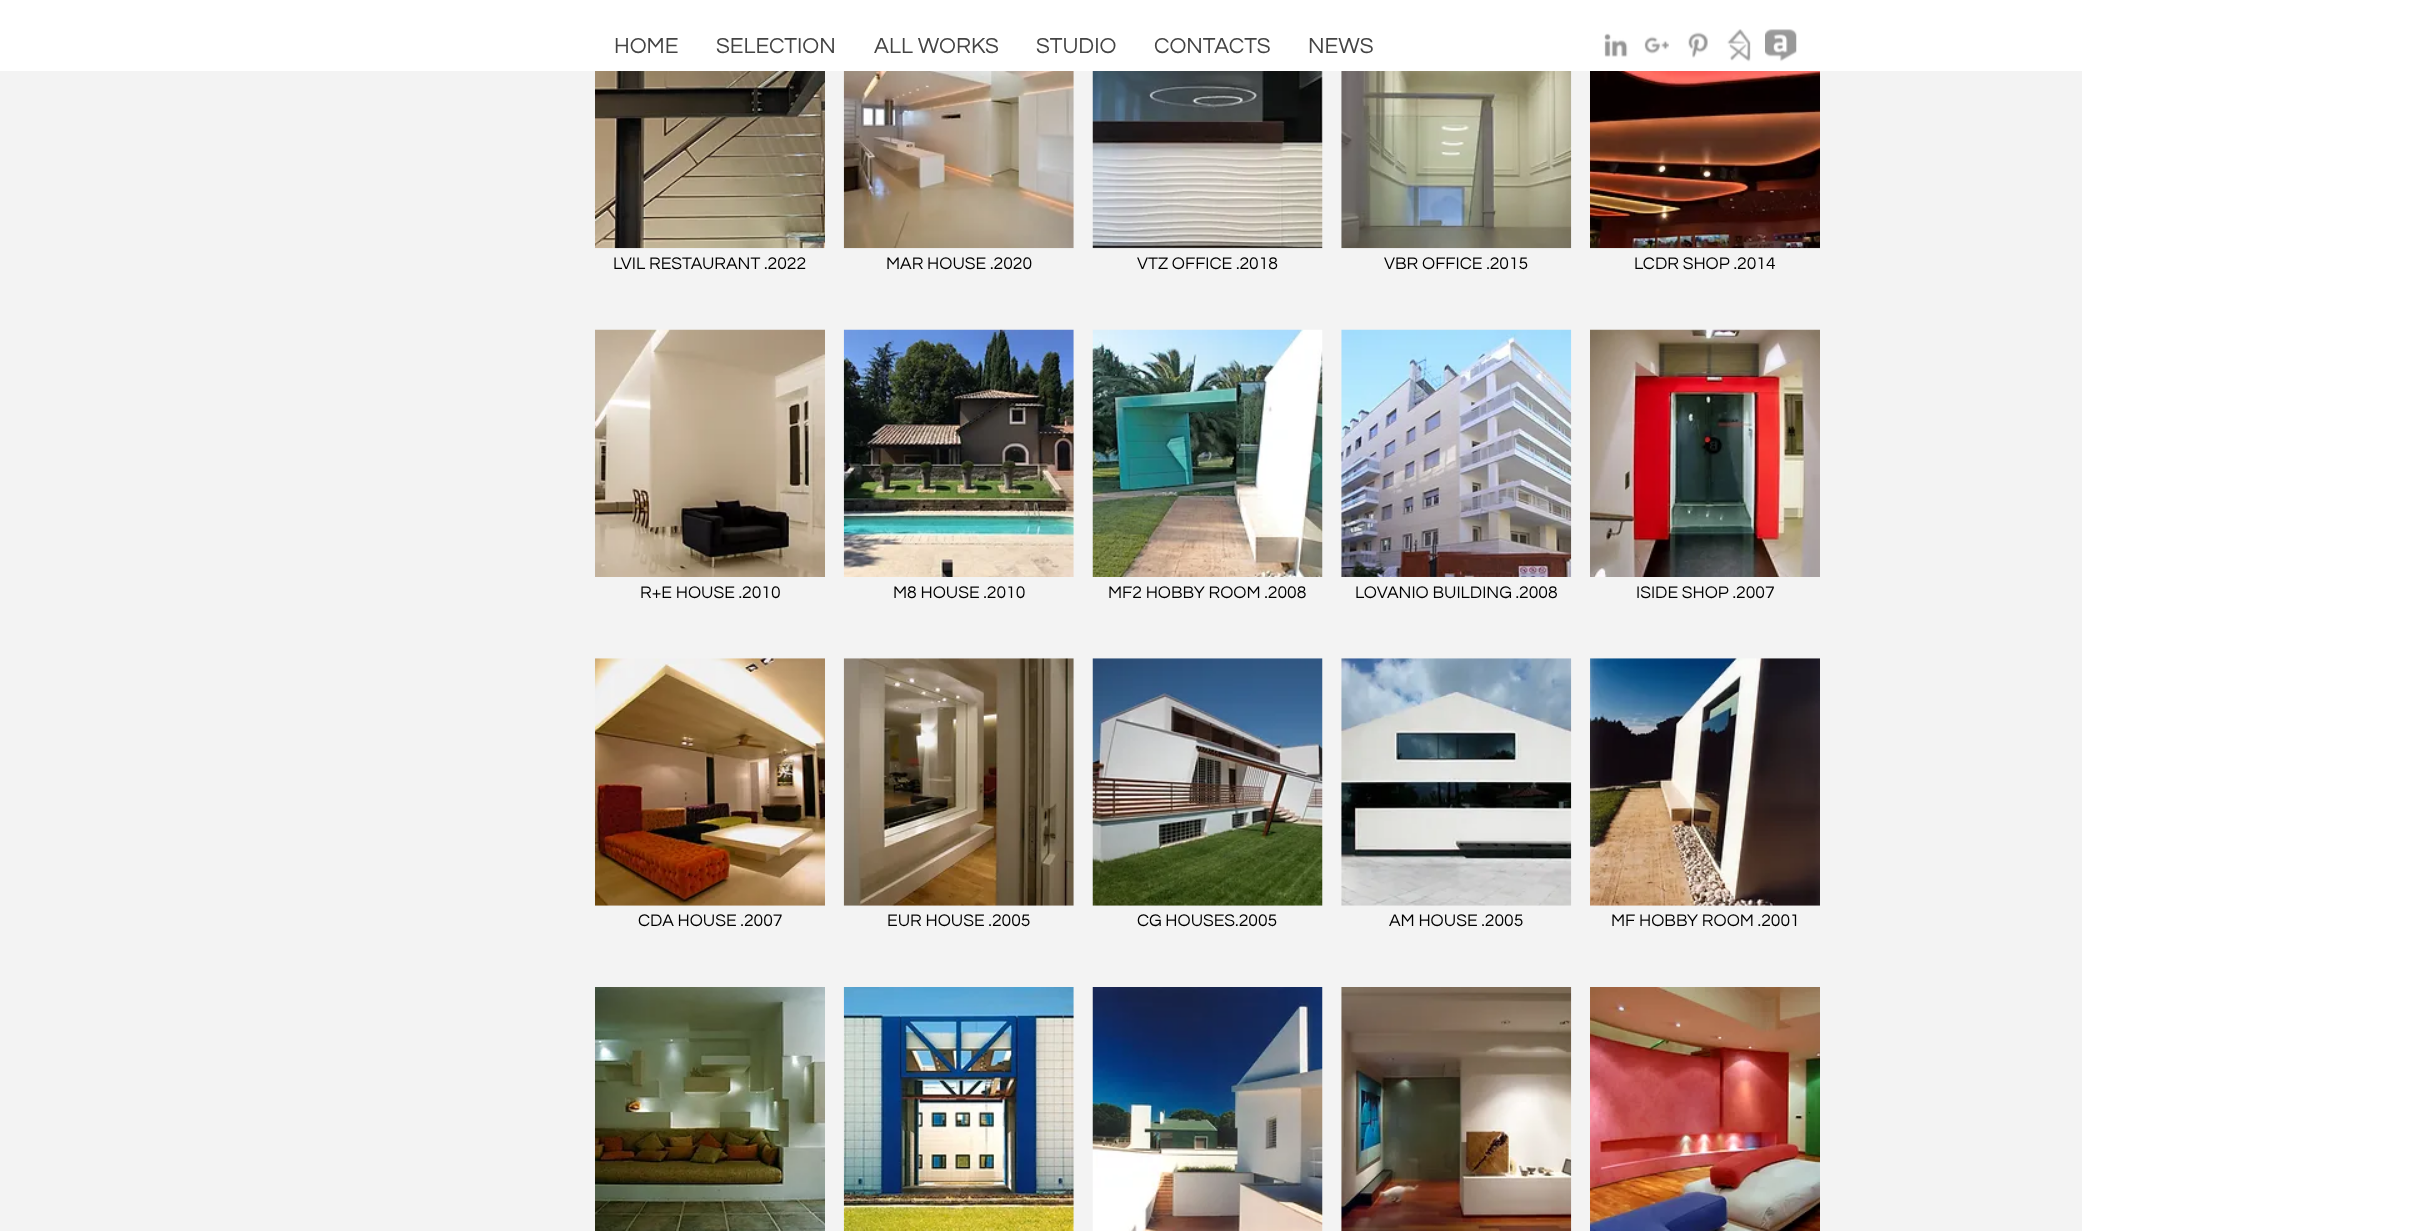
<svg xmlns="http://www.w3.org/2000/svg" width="2414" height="1231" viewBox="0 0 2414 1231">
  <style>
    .t1 { font: 22.5px Questrial; fill: #444; }
    .t2 { font: 17.5px Questrial; fill: #000; }
  </style>
  <rect width="100%" height="100%" fill="#fff"/>
  <text x="614" y="53" class="t1">HOME</text>
  <text x="716" y="53" class="t1">SELECTION</text>
  <text x="874" y="53" class="t1">ALL WORKS</text>
  <text x="1036" y="53" class="t1">STUDIO</text>
  <text x="1154" y="53" class="t1">CONTACTS</text>
  <text x="1308" y="53" class="t1">NEWS</text>
  <image x="1604" y="33" width="24" height="24" href="images/1.png"/>
  <image x="1644" y="36" width="25" height="18" href="images/2.png"/>
  <image x="1688" y="32" width="20" height="26" href="images/3.png"/>
  <image x="1727" y="29" width="24" height="33" href="images/4.png"/>
  <image x="1765" y="29" width="32" height="33" href="images/5.png"/>
  <rect x="0" y="71" width="2082" height="1160" fill="#f3f3f3"/>
  <image x="595" y="71" width="230" height="178" href="images/6.png"/>
  <text x="613" y="269" class="t2">LVIL RESTAURANT .2022</text>
  <image x="843" y="71" width="231" height="178" href="images/7.png"/>
  <text x="886" y="269" class="t2">MAR HOUSE .2020</text>
  <image x="1092" y="71" width="231" height="178" href="images/8.png"/>
  <text x="1137" y="269" class="t2">VTZ OFFICE .2018</text>
  <image x="1341" y="71" width="231" height="178" href="images/9.png"/>
  <text x="1384" y="269" class="t2">VBR OFFICE .2015</text>
  <image x="1590" y="71" width="230" height="178" href="images/10.png"/>
  <text x="1634" y="269" class="t2">LCDR SHOP .2014</text>
  <image x="595" y="329" width="230" height="248" href="images/11.png"/>
  <text x="640" y="598" class="t2">R+E HOUSE .2010</text>
  <image x="843" y="329" width="231" height="248" href="images/12.png"/>
  <text x="893" y="598" class="t2">M8 HOUSE .2010</text>
  <image x="1092" y="329" width="231" height="248" href="images/13.png"/>
  <text x="1108" y="598" class="t2">MF2 HOBBY ROOM .2008</text>
  <image x="1341" y="329" width="231" height="248" href="images/14.png"/>
  <text x="1355" y="598" class="t2">LOVANIO BUILDING .2008</text>
  <image x="1590" y="329" width="230" height="248" href="images/15.png"/>
  <text x="1636" y="598" class="t2">ISIDE SHOP .2007</text>
  <image x="595" y="658" width="230" height="248" href="images/16.png"/>
  <text x="638" y="926" class="t2">CDA HOUSE .2007</text>
  <image x="843" y="658" width="231" height="248" href="images/17.png"/>
  <text x="887" y="926" class="t2">EUR HOUSE .2005</text>
  <image x="1092" y="658" width="231" height="248" href="images/18.png"/>
  <text x="1137" y="926" class="t2">CG HOUSES.2005</text>
  <image x="1341" y="658" width="231" height="248" href="images/19.png"/>
  <text x="1389" y="926" class="t2">AM HOUSE .2005</text>
  <image x="1590" y="658" width="230" height="248" href="images/20.png"/>
  <text x="1611" y="926" class="t2">MF HOBBY ROOM .2001</text>
  <image x="595" y="987" width="230" height="244" href="images/21.png"/>
  <image x="843" y="987" width="231" height="244" href="images/22.png"/>
  <image x="1092" y="987" width="231" height="244" href="images/23.png"/>
  <image x="1341" y="987" width="231" height="244" href="images/24.png"/>
  <image x="1590" y="987" width="230" height="244" href="images/25.png"/>
</svg>
